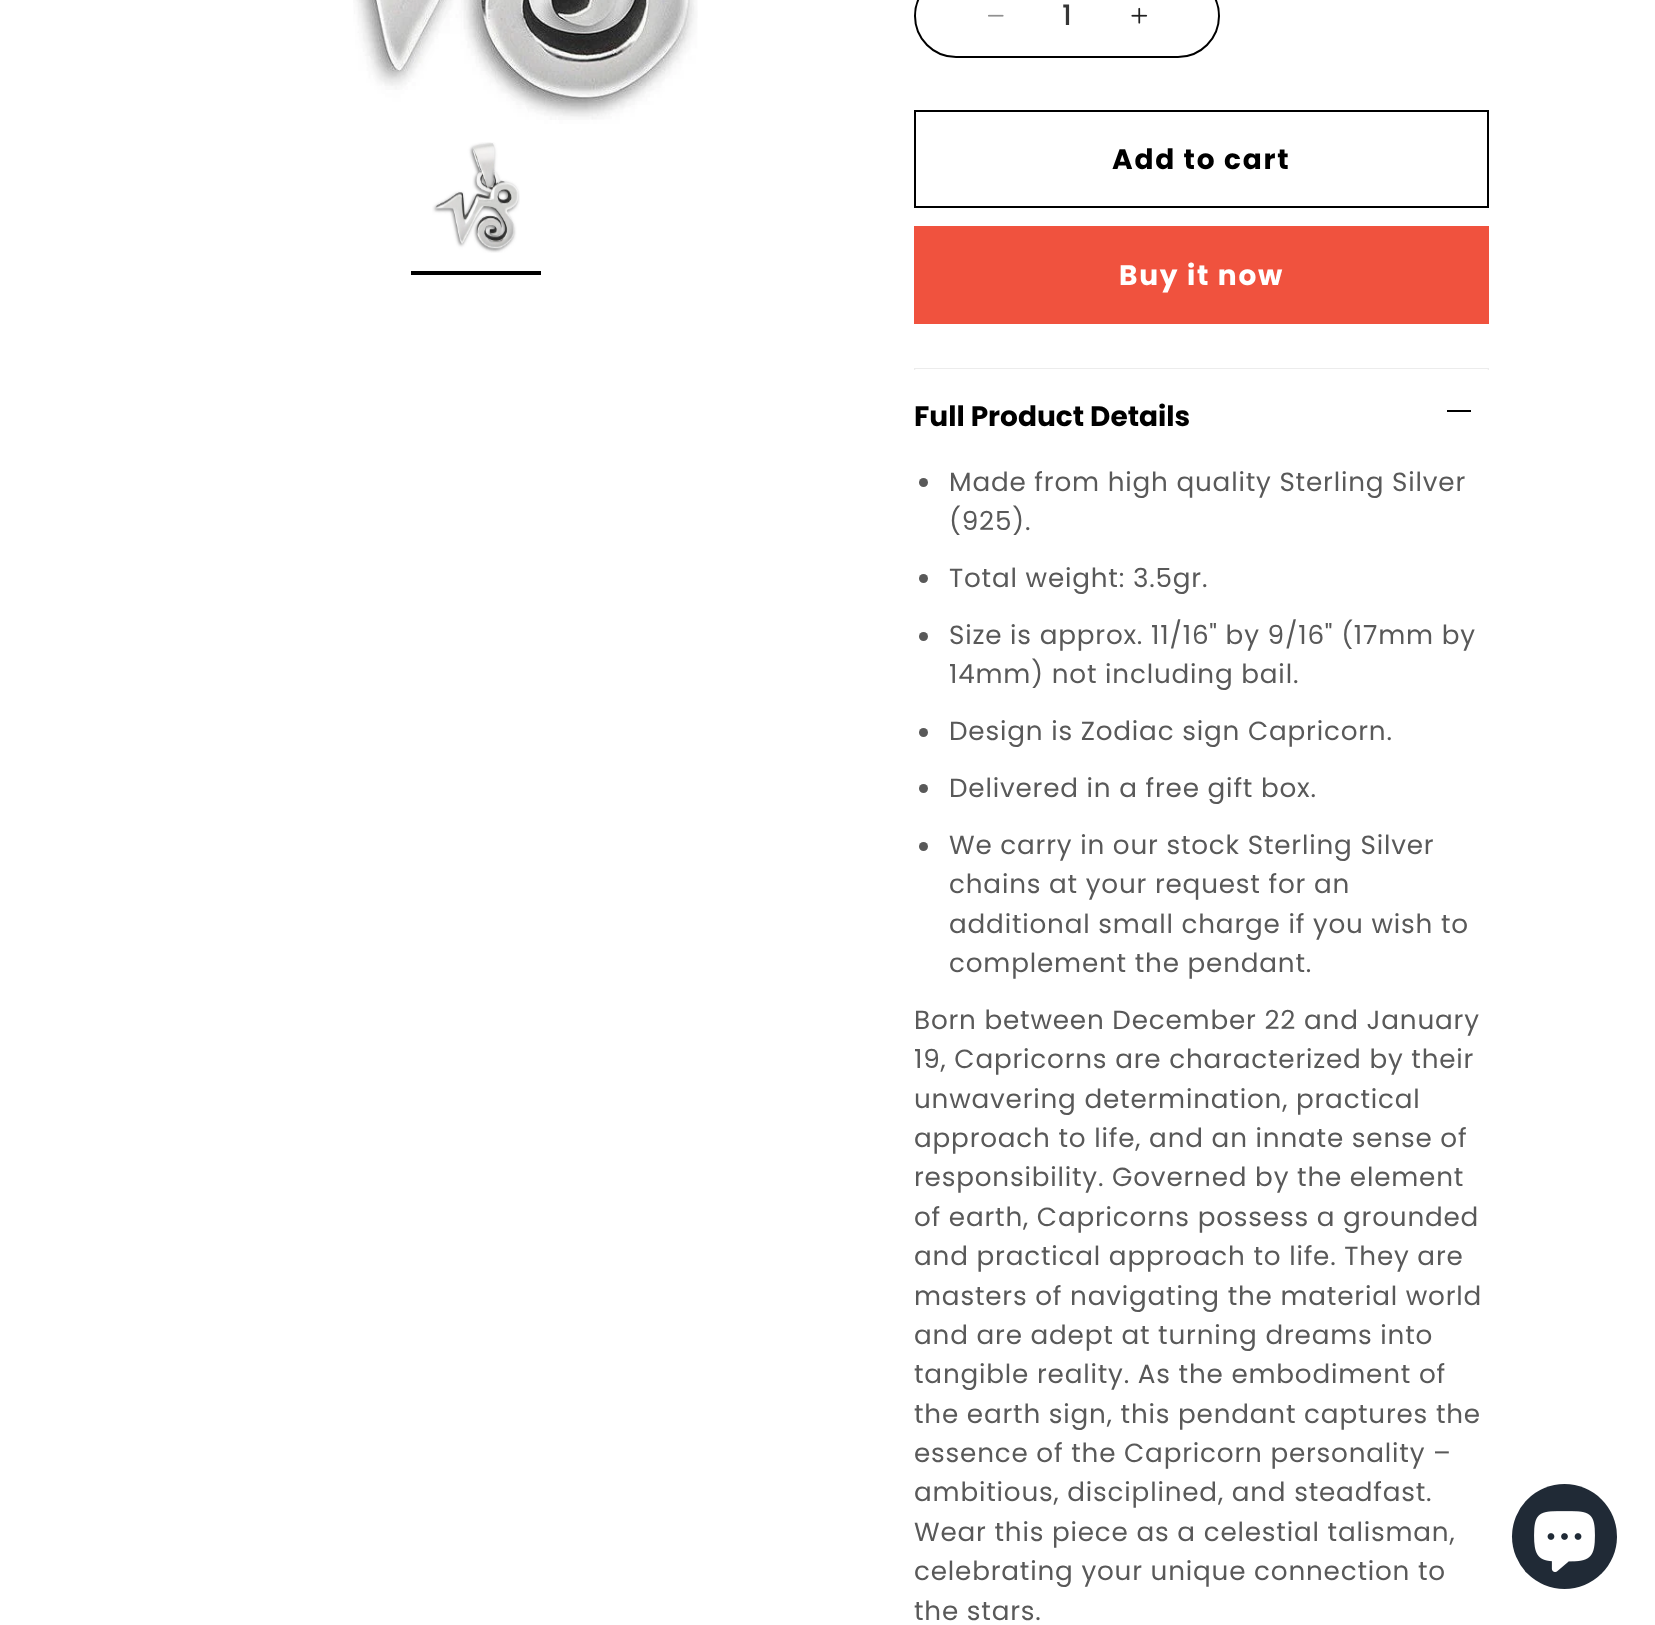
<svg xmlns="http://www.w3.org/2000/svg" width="1655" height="1625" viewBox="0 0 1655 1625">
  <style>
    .t1 { font: 500 28px Poppins; fill: #363636; }
    .t2 { font: bold 28px Poppins; letter-spacing: 1.75px; fill: #000; }
    .t3 { font: bold 28px Poppins; letter-spacing: 1.75px; fill: #fff; }
    .t4 { font: bold 28px Poppins; fill: #000; }
    .t5 { font: 26.25px Poppins; letter-spacing: 0.8px; fill: #595959; }
  </style>
  <rect width="100%" height="100%" fill="#fff"/>
  <image x="353" y="0" width="345" height="124" href="images/1.png"/>
  <rect x="411" y="271" width="130" height="4" fill="#000"/>
  <image x="432" y="142" width="88" height="111" href="images/2.png"/>
  <rect x="915" y="-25" width="304" height="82" rx="41" fill="none" stroke="#000" stroke-width="2"/>
  <image x="988" y="14" width="16" height="3" href="images/3.png"/>
  <text x="1062" y="25" class="t1">1</text>
  <image x="1131" y="7" width="17" height="17" href="images/4.png"/>
  <rect x="915" y="111" width="573" height="96" fill="none" stroke="#000" stroke-width="2"/>
  <text x="1112" y="169" class="t2">Add to cart</text>
  <rect x="914" y="226" width="575" height="98" fill="#f0523e"/>
  <text x="1119" y="285" class="t3">Buy it now</text>
  <rect x="914" y="368" width="575" height="2" fill="#ececec"/>
  <rect x="914" y="369" width="575" height="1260" rx="4" fill="#fff"/>
  <path d="M916.5 369H1486.5C1488 369 1489 370 1489 371.5V462H914V371.5C914 370 915 369 916.5 369Z" fill="#fff"/>
  <text x="914" y="426" class="t4">Full Product Details</text>
  <rect x="1447" y="410" width="24" height="2" fill="#000"/>
  <circle cx="923.5" cy="482.5" r="4.5" fill="#595959"/>
  <text x="949" y="491" class="t5">Made from high quality Sterling Silver</text>
  <text x="949" y="530" class="t5">(925).</text>
  <circle cx="923.5" cy="578.5" r="4.5" fill="#595959"/>
  <text x="949" y="587" class="t5">Total weight: 3.5gr.</text>
  <circle cx="923.5" cy="636.5" r="4.5" fill="#595959"/>
  <text x="949" y="644" class="t5">Size is approx. 11/16" by 9/16" (17mm by</text>
  <text x="949" y="683" class="t5">14mm) not including bail.</text>
  <circle cx="923.5" cy="732.5" r="4.5" fill="#595959"/>
  <text x="949" y="740" class="t5">Design is Zodiac sign Capricorn.</text>
  <circle cx="923.5" cy="788.5" r="4.5" fill="#595959"/>
  <text x="949" y="797" class="t5">Delivered in a free gift box.</text>
  <circle cx="923.5" cy="846.5" r="4.5" fill="#595959"/>
  <text x="949" y="854" class="t5">We carry in our stock Sterling Silver</text>
  <text x="949" y="893" class="t5">chains at your request for an</text>
  <text x="949" y="933" class="t5">additional small charge if you wish to</text>
  <text x="949" y="972" class="t5">complement the pendant.</text>
  <text x="914" y="1029" class="t5">Born between December 22 and January</text>
  <text x="914" y="1068" class="t5">19, Capricorns are characterized by their</text>
  <text x="914" y="1108" class="t5">unwavering determination, practical</text>
  <text x="914" y="1147" class="t5">approach to life, and an innate sense of</text>
  <text x="914" y="1186" class="t5">responsibility. Governed by the element</text>
  <text x="914" y="1226" class="t5">of earth, Capricorns possess a grounded</text>
  <text x="914" y="1265" class="t5">and practical approach to life. They are</text>
  <text x="914" y="1305" class="t5">masters of navigating the material world</text>
  <text x="914" y="1344" class="t5">and are adept at turning dreams into</text>
  <text x="914" y="1383" class="t5">tangible reality. As the embodiment of</text>
  <text x="914" y="1423" class="t5">the earth sign, this pendant captures the</text>
  <text x="914" y="1462" class="t5">essence of the Capricorn personality –</text>
  <text x="914" y="1501" class="t5">ambitious, disciplined, and steadfast.</text>
  <text x="914" y="1541" class="t5">Wear this piece as a celestial talisman,</text>
  <text x="914" y="1580" class="t5">celebrating your unique connection to</text>
  <text x="914" y="1620" class="t5">the stars.</text>
  <circle cx="1564.5" cy="1536.5" r="52.5" fill="#202a36"/>
  <image x="1534" y="1511" width="61" height="61" href="images/5.png"/>
</svg>
